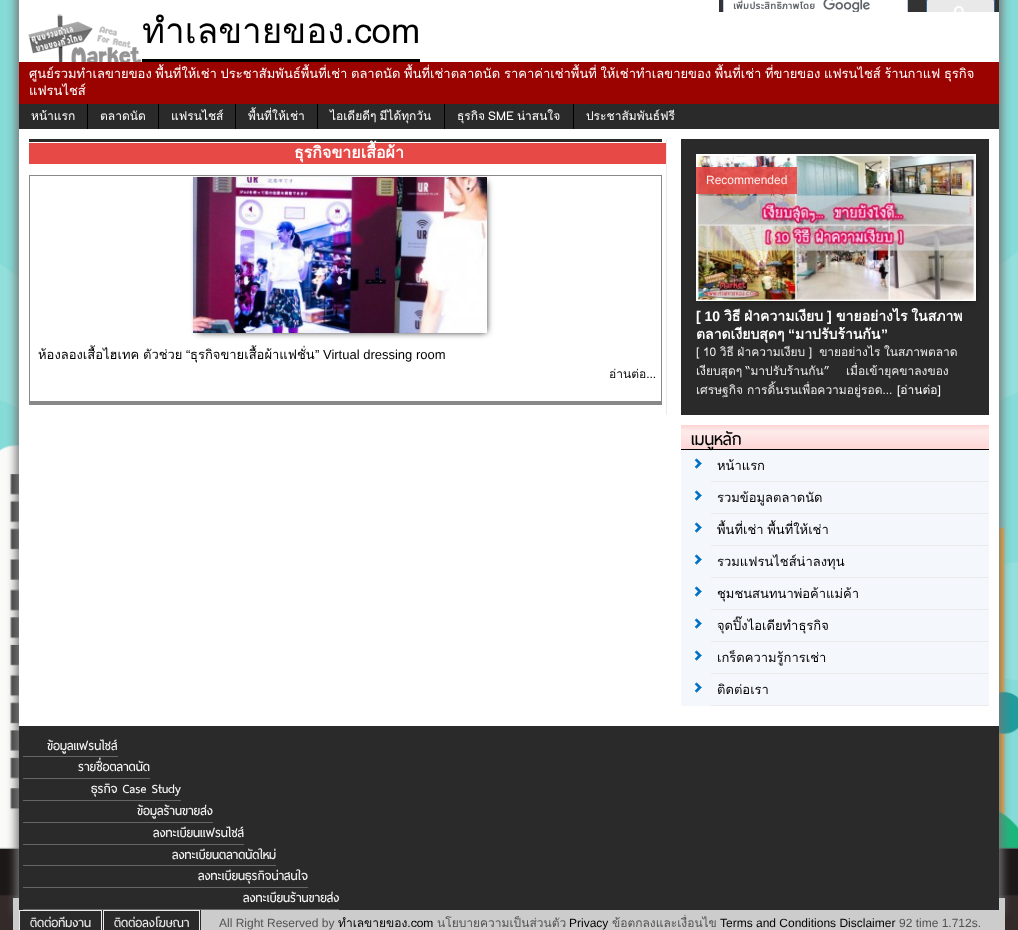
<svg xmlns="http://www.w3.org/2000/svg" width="1018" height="930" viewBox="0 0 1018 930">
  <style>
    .t1 { font: 35px Loma; fill: #000; }
    .t2 { font: 13px Loma; fill: #fff; }
    .t3 { font: 12px Loma; fill: #fff; }
    .t4 { font: bold 16px Loma; fill: #fff; }
    .t5 { font: 13px Loma; fill: #000; }
    .t6 { font: 13px Liberation Sans; fill: #000; }
    .t7 { font: 12px Loma; fill: #000; }
    .t8 { font: 12px Liberation Sans; fill: #fceded; }
    .t9 { font: bold 14px Liberation Sans; fill: #fff; }
    .t10 { font: bold 14px Loma; fill: #fff; }
    .t11 { font: 12px Loma; fill: #ebebeb; }
    .t12 { font: 600 22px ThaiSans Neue; fill: #000; }
    .t13 { font: 600 16px ThaiSans Neue; fill: #f7f7f7; }
    .t14 { font: 600 16px ThaiSans Neue; fill: #ebebeb; }
    .t15 { font: 12px Liberation Sans; fill: #525252; }
    .t16 { font: 12px Loma; fill: #525252; }
    .t17 { font: 12px Liberation Sans; fill: #000; }
  </style>
  <defs>
    <clipPath id="clip1"><rect x="719" y="0" width="280" height="12"/></clipPath>
  </defs>
  <rect width="100%" height="100%" fill="#fff"/>
  <image x="0" y="0" width="1018" height="930" href="images/1.png"/>
  <rect x="16" y="-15" width="986" height="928" fill="#777" filter="blur(5px)"/>
  <rect x="19" y="0" width="980" height="62" fill="#fff"/>
  <rect x="719" y="0" width="280" height="12" fill="#333"/>
  <rect x="724" y="0" width="183" height="12" fill="#fff"/>
  <g clip-path="url(#clip1)">
    <rect x="723.5" y="-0.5" width="184" height="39" fill="none" stroke="#bccdf0"/>
  </g>
  <image x="733" y="0" width="137" height="12" href="images/2.png"/>
  <path d="M928-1H993C994-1 995 0 995 1V12H926V1C926 0 927-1 928-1Z" fill="#e9e9e9"/>
  <g clip-path="url(#clip1)">
    <rect x="926.5" y="-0.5" width="68" height="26" rx="1.5" fill="none" stroke="#369"/>
  </g>
  <image x="954" y="6" width="10" height="6" href="images/3.png"/>
  <image x="28" y="14" width="114" height="48" href="images/4.png"/>
  <rect x="142" y="59" width="278" height="3" fill="#000"/>
  <text x="142" y="43" class="t1">ทำเลขายของ.com</text>
  <rect x="19" y="62" width="980" height="42" fill="#9b0300"/>
  <text x="29" y="78" word-spacing="-0.75" class="t2">ศูนย์รวมทำเลขายของ พื้นที่ให้เช่า ประชาสัมพันธ์พื้นที่เช่า ตลาดนัด พื้นที่เช่าตลาดนัด</text>
  <text x="504" y="78" word-spacing="-0.75" class="t2">ราคาค่าเช่าพื้นที่ ให้เช่าทำเลขายของ พื้นที่เช่า ที่ขายของ แฟรนไชส์ ร้านกาแฟ ธุรกิจ</text>
  <text x="29" y="95" class="t2">แฟรนไชส์</text>
  <rect x="19" y="104" width="980" height="25" fill="#2a2a2a"/>
  <text x="31" y="120" class="t3">หน้าแรก</text>
  <rect x="87" y="104" width="1" height="25" fill="#000"/>
  <text x="100" y="120" class="t3">ตลาดนัด</text>
  <rect x="158" y="104" width="1" height="25" fill="#000"/>
  <text x="171" y="120" class="t3">แฟรนไชส์</text>
  <rect x="235" y="104" width="1" height="25" fill="#000"/>
  <text x="248" y="120" class="t3">พื้นที่ให้เช่า</text>
  <rect x="317" y="104" width="1" height="25" fill="#000"/>
  <text x="330" y="120" word-spacing="-1" class="t3">ไอเดียดีๆ มีได้ทุกวัน</text>
  <rect x="444" y="104" width="1" height="25" fill="#000"/>
  <text x="457" y="120" word-spacing="-1" class="t3">ธุรกิจ SME น่าสนใจ</text>
  <rect x="573" y="104" width="1" height="25" fill="#000"/>
  <text x="586" y="120" class="t3">ประชาสัมพันธ์ฟรี</text>
  <rect x="19" y="129" width="980" height="597" fill="#fff"/>
  <rect x="666" y="139" width="1" height="276" fill="#ebebeb"/>
  <rect x="29" y="139" width="633" height="3" fill="#2a2a2a"/>
  <rect x="29" y="143" width="637" height="21" fill="#e64946"/>
  <text x="294" y="158" class="t4">ธุรกิจขายเสื้อผ้า</text>
  <rect x="29" y="175" width="633" height="1" fill="#888"/>
  <rect x="661" y="175" width="1" height="230" fill="#888"/>
  <rect x="29" y="401" width="633" height="4" fill="#888"/>
  <rect x="29" y="175" width="1" height="230" fill="#888"/>
  <rect x="198" y="182" width="288" height="150" fill="#000" filter="blur(3.5px)"/>
  <image x="193" y="177" width="294" height="156" href="images/5.png"/>
  <text x="38" y="359" class="t5">ห้องลองเสื้อไฮเทค</text>
  <text x="143" y="359" class="t5">ตัวช่วย</text>
  <text x="186" y="359" class="t6">“</text>
  <text x="190" y="359" class="t5">ธุรกิจขายเสื้อผ้าแฟชั่น</text>
  <text x="315" y="359" class="t6">” Virtual dressing room</text>
  <text x="609" y="378" class="t7">อ่านต่อ...</text>
  <rect x="681" y="139" width="308" height="276" fill="#2a2a2a"/>
  <rect x="702" y="160" width="272" height="139" fill="#000" filter="blur(3.5px)"/>
  <rect x="696.5" y="154.5" width="279" height="146" fill="none" stroke="#fff"/>
  <image x="697" y="155" width="278" height="145" href="images/6.png"/>
  <rect x="696" y="167" width="101" height="27" fill="#e64946e6"/>
  <text x="706" y="184" class="t8">Recommended</text>
  <text x="696" y="321" class="t9">[ 10</text>
  <text x="724" y="321" class="t10">วิธี</text>
  <text x="744" y="321" class="t10">ฝ่าความเงียบ</text>
  <text x="827" y="321" class="t9">]</text>
  <text x="836" y="321" word-spacing="-1" class="t10">ขายอย่างไร ในสภาพ</text>
  <text x="696" y="339" class="t10">ตลาดเงียบสุดๆ</text>
  <text x="788" y="339" class="t9">“</text>
  <text x="795" y="339" class="t10">มาปรับร้านกัน</text>
  <text x="881" y="339" class="t9">”</text>
  <text x="696" y="356" word-spacing="-0.5" class="t11" xml:space="preserve">[ 10 วิธี ฝ่าความเงียบ ]  ขายอย่างไร ในสภาพตลาด</text>
  <text x="696" y="375" word-spacing="-0.75" class="t11" xml:space="preserve">เงียบสุดๆ “มาปรับร้านกัน”     เมื่อเข้ายุคขาลงของ</text>
  <text x="696" y="394" class="t11">เศรษฐกิจ การดิ้นรนเพื่อความอยู่รอด…</text>
  <text x="897" y="394" class="t3">[อ่านต่อ]</text>
  <rect x="681" y="450" width="308" height="256" fill="#f4f7fc"/>
  <image x="681" y="425" width="308" height="24" href="images/7.png"/>
  <rect x="681" y="449" width="308" height="1" fill="#000"/>
  <text x="691" y="445" class="t12">เมนูหลัก</text>
  <rect x="711" y="481" width="278" height="1" fill="#ebebeb"/>
  <image x="694" y="458" width="8" height="11" href="images/8.png"/>
  <text x="717" y="470" class="t5">หน้าแรก</text>
  <rect x="711" y="513" width="278" height="1" fill="#ebebeb"/>
  <image x="694" y="490" width="8" height="11" href="images/8.png"/>
  <text x="717" y="502" class="t5">รวมข้อมูลตลาดนัด</text>
  <rect x="711" y="545" width="278" height="1" fill="#ebebeb"/>
  <image x="694" y="522" width="8" height="11" href="images/8.png"/>
  <text x="717" y="534" word-spacing="-0.75" class="t5">พื้นที่เช่า พื้นที่ให้เช่า</text>
  <rect x="711" y="577" width="278" height="1" fill="#ebebeb"/>
  <image x="694" y="554" width="8" height="11" href="images/8.png"/>
  <text x="717" y="566" class="t5">รวมแฟรนไชส์น่าลงทุน</text>
  <rect x="711" y="609" width="278" height="1" fill="#ebebeb"/>
  <image x="694" y="586" width="8" height="11" href="images/8.png"/>
  <text x="717" y="598" class="t5">ชุมชนสนทนาพ่อค้าแม่ค้า</text>
  <rect x="711" y="641" width="278" height="1" fill="#ebebeb"/>
  <image x="694" y="618" width="8" height="11" href="images/8.png"/>
  <text x="717" y="630" class="t5">จุดปิ๊งไอเดียทำธุรกิจ</text>
  <rect x="711" y="673" width="278" height="1" fill="#ebebeb"/>
  <image x="694" y="650" width="8" height="11" href="images/8.png"/>
  <text x="717" y="662" class="t5">เกร็ดความรู้การเช่า</text>
  <rect x="711" y="705" width="278" height="1" fill="#ebebeb"/>
  <image x="694" y="682" width="8" height="11" href="images/8.png"/>
  <text x="717" y="694" class="t5">ติดต่อเรา</text>
  <rect x="13" y="898" width="992" height="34" fill="#ccc" filter="blur(0.5px)"/>
  <rect x="19" y="726" width="980" height="184" fill="#2a2a2a"/>
  <rect x="23" y="756" width="95" height="1" fill="#666"/>
  <text x="47" y="750" class="t13">ข้อมูลแฟรนไชส์</text>
  <rect x="23" y="778" width="127" height="1" fill="#666"/>
  <text x="78" y="771" class="t13">รายชื่อตลาดนัด</text>
  <rect x="23" y="800" width="158" height="1" fill="#666"/>
  <text x="91" y="793" class="t13">ธุรกิจ Case Study</text>
  <rect x="23" y="822" width="190" height="1" fill="#666"/>
  <text x="137" y="815" class="t13">ข้อมูลร้านขายส่ง</text>
  <rect x="23" y="844" width="221" height="1" fill="#666"/>
  <text x="153" y="837" class="t13">ลงทะเบียนแฟรนไชส์</text>
  <rect x="23" y="865" width="253" height="1" fill="#666"/>
  <text x="172" y="859" class="t13">ลงทะเบียนตลาดนัดใหม่</text>
  <rect x="23" y="887" width="285" height="1" fill="#666"/>
  <text x="198" y="880" class="t13">ลงทะเบียนธุรกิจน่าสนใจ</text>
  <rect x="23" y="909" width="316" height="1" fill="#666"/>
  <text x="243" y="902" class="t13">ลงทะเบียนร้านขายส่ง</text>
  <rect x="20" y="910" width="181" height="20" fill="#2a2a2a"/>
  <rect x="19.5" y="910.5" width="82" height="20" fill="none" stroke="#ebebeb"/>
  <text x="30" y="927" class="t14">ติดต่อทีมงาน</text>
  <rect x="103.5" y="910.5" width="96" height="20" fill="none" stroke="#ebebeb"/>
  <text x="114" y="927" class="t14">ติดต่อลงโฆษณา</text>
  <text x="219" y="927" class="t15">All Right Reserved by</text>
  <text x="338" y="927" class="t7">ทำเลขายของ.com</text>
  <text x="437" y="927" class="t16">นโยบายความเป็นส่วนตัว</text>
  <text x="569" y="927" class="t17">Privacy</text>
  <text x="612" y="927" class="t16">ข้อตกลงและเงื่อนไข</text>
  <text x="720" y="927" class="t17">Terms and Conditions Disclaimer</text>
  <text x="899" y="927" class="t15">92 time 1.712s.</text>
</svg>
